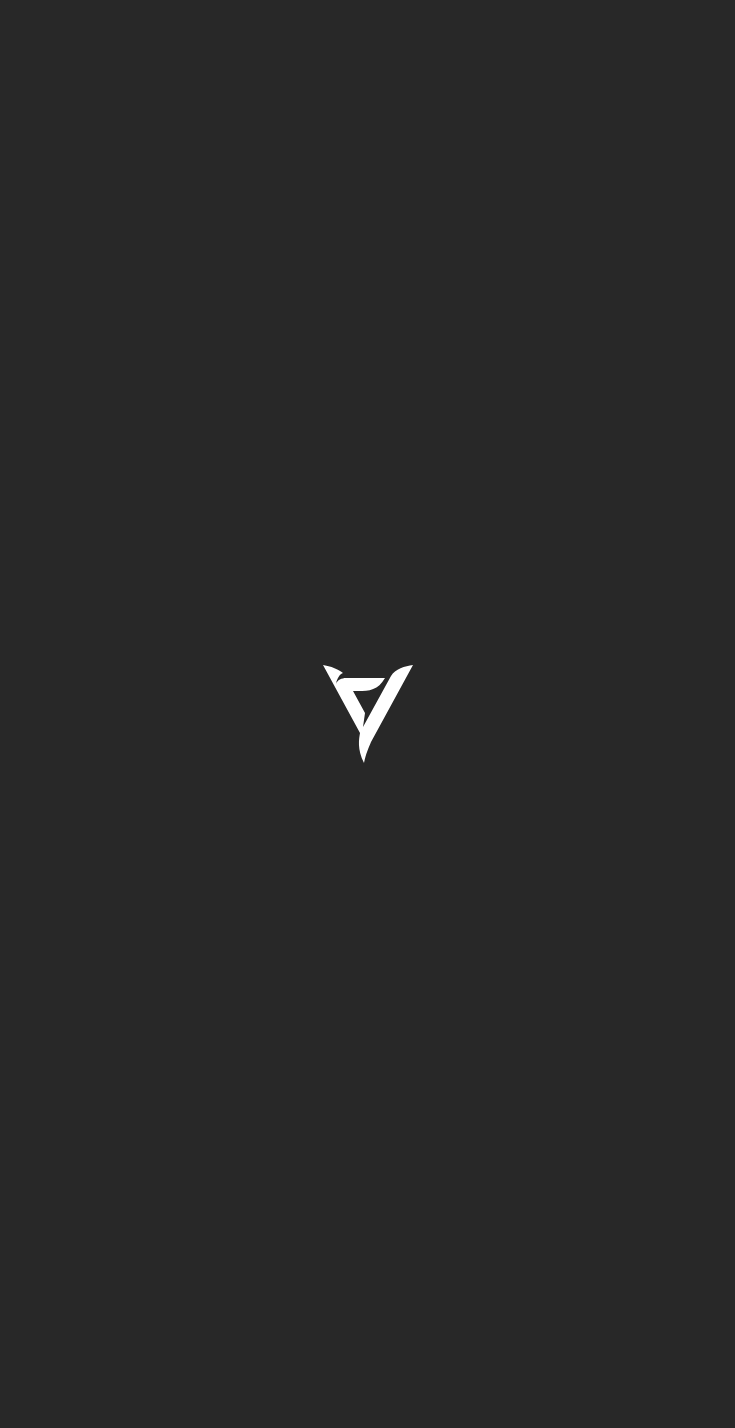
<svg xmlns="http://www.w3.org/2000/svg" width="735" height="1428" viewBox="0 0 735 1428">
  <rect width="100%" height="100%" fill="#282828"/>
  <path d="M391 676L363 727L365 713L353 691C367 691 377 692 385 678H346C342 678 337 680 336 684C337 678 340 674 343 673C343 673 336 667 323 665L360 733C359 739 357 749 364 763C366 753 369 747 371 742L413 665C405 666 395 669 391 676Z" fill="#fff"/>
</svg>
